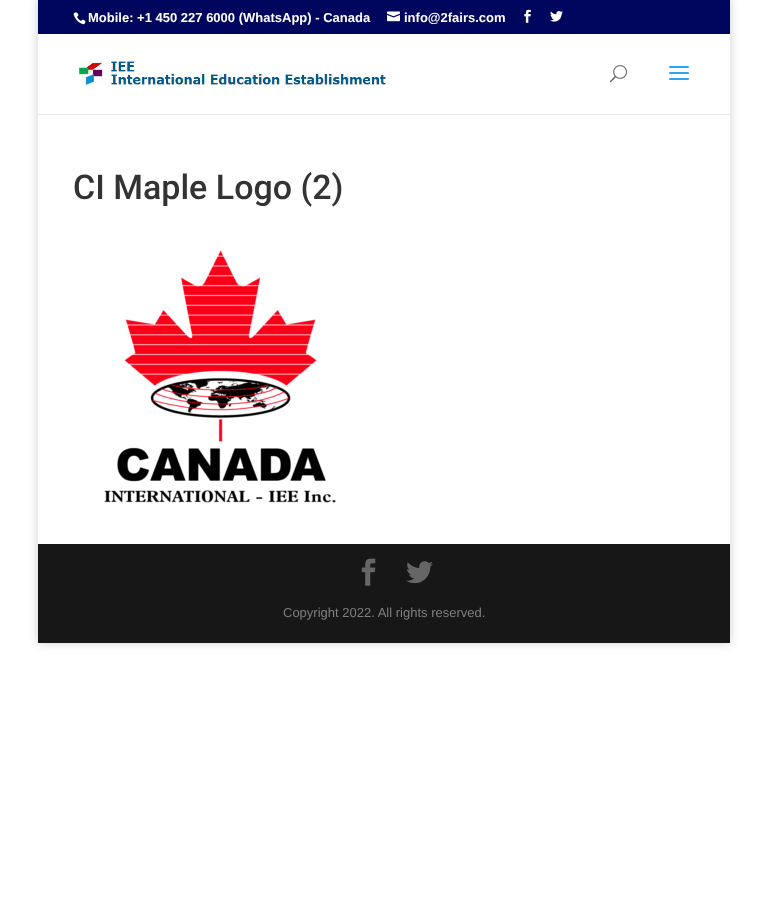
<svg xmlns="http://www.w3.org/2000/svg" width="768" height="910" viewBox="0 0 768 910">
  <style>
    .t1 { font: bold 13px Liberation Sans; fill: #fff; }
    .t2 { font: 500 34px Roboto; fill: #333; }
    .t3 { font: 13px Liberation Sans; fill: #7f7f7f; }
  </style>
  <defs>
    <clipPath id="clip1"><path d="M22 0H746V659H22ZM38 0H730V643H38Z" clip-rule="evenodd"/></clipPath>
  </defs>
  <rect width="100%" height="100%" fill="#fff"/>
  <g clip-path="url(#clip1)">
    <rect x="38" y="0" width="692" height="643" fill="#00000033" filter="blur(5px)"/>
  </g>
  <rect x="38" y="0" width="692" height="34" fill="#00065e"/>
  <image x="73" y="12" width="13" height="13" href="images/1.png"/>
  <text x="88" y="22" class="t1">Mobile: +1 450 227 6000 (WhatsApp) - Canada</text>
  <image x="387" y="11" width="13" height="11" href="images/2.png"/>
  <text x="404" y="22" class="t1">info@2fairs.com</text>
  <image x="524" y="9" width="7" height="14" href="images/3.png"/>
  <image x="550" y="11" width="13" height="11" href="images/4.png"/>
  <rect x="38" y="114" width="692" height="1" fill="#e6e6e6"/>
  <image x="78" y="60" width="309" height="25" href="images/5.png"/>
  <image x="610" y="65" width="17" height="18" href="images/6.png"/>
  <image x="669" y="66" width="20" height="14" href="images/7.png"/>
  <text x="73" y="199" class="t2">CI Maple Logo (2)</text>
  <image x="104" y="250" width="232" height="253" href="images/8.png"/>
  <rect x="38" y="544" width="692" height="99" fill="#171717"/>
  <image x="361" y="558" width="15" height="28" href="images/9.png"/>
  <image x="406" y="561" width="27" height="23" href="images/10.png"/>
  <text x="283" y="617" class="t3">Copyright 2022. All rights reserved.</text>
</svg>
